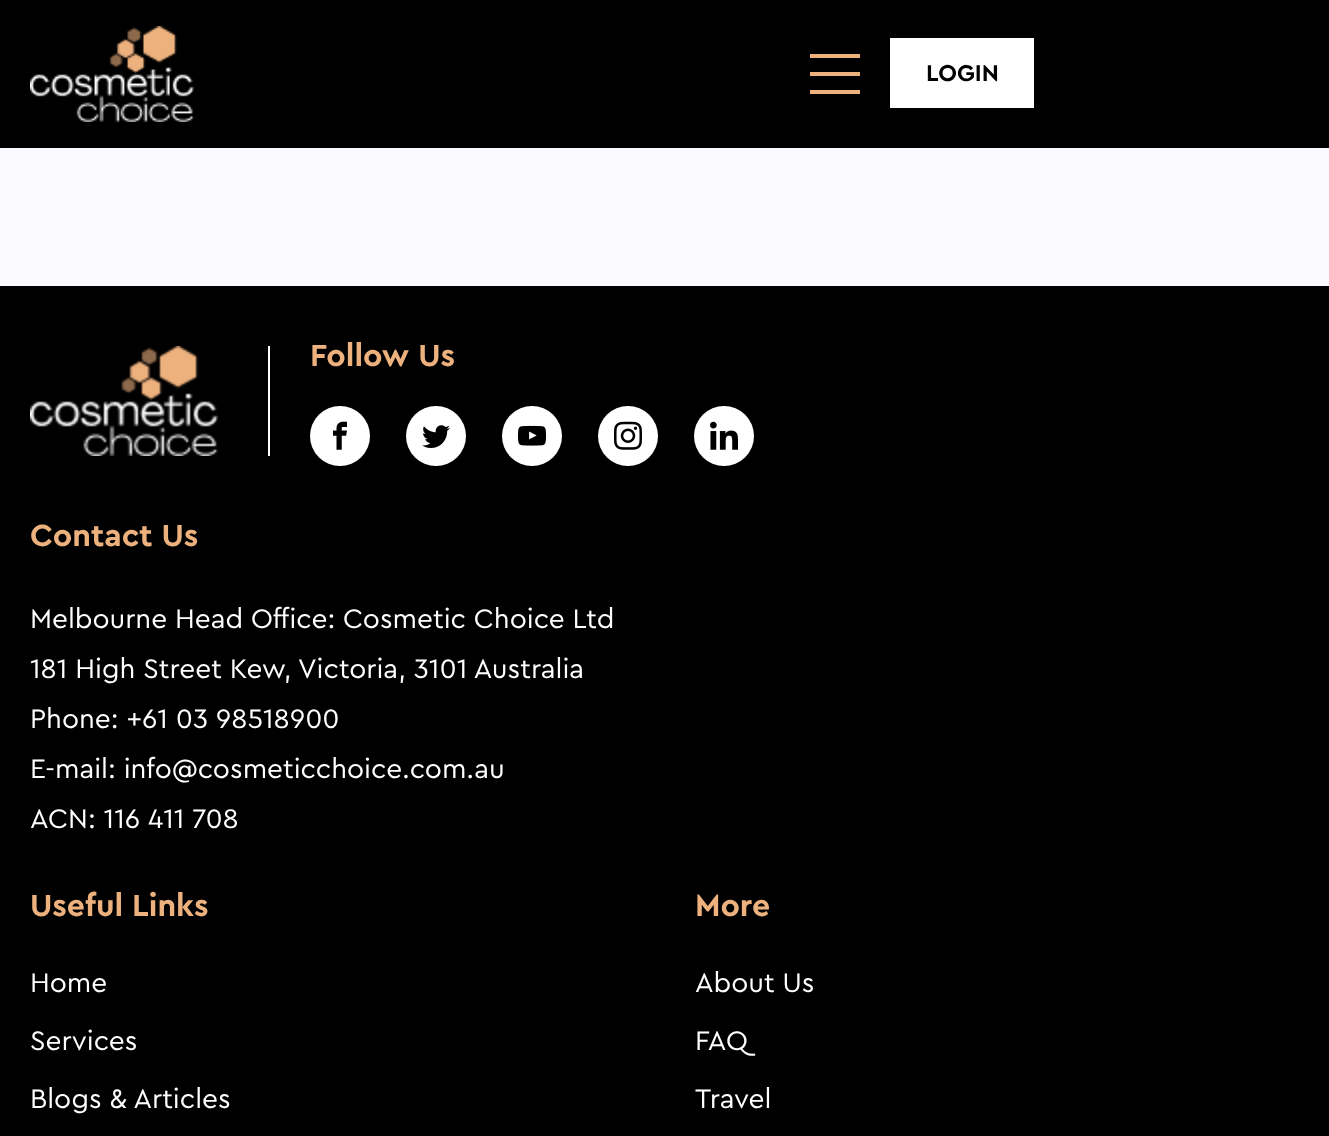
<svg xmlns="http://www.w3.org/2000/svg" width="1329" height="1136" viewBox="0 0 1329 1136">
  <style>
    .t1 { font: bold 24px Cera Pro; fill: #000; }
    .t2 { font: bold 32px Cera Pro; fill: #edb17e; }
    .t3 { font: 28px Cera Pro; fill: #fff; }
  </style>
  <rect width="100%" height="100%" fill="#fbfbff"/>
  <rect x="0" y="0" width="1329" height="148" fill="#000"/>
  <image x="30" y="26" width="164" height="96" href="images/1.png"/>
  <rect x="810" y="54" width="50" height="4" fill="#edb17e"/>
  <rect x="810" y="72" width="50" height="4" fill="#edb17e"/>
  <rect x="810" y="90" width="50" height="4" fill="#edb17e"/>
  <rect x="890" y="38" width="144" height="70" fill="#fff"/>
  <text x="926" y="81" class="t1">LOGIN</text>
  <rect x="0" y="286" width="1329" height="850" fill="#000"/>
  <rect x="268" y="346" width="2" height="110" fill="#fff"/>
  <image x="30" y="346" width="188" height="110" href="images/2.png"/>
  <text x="310" y="366" class="t2">Follow Us</text>
  <circle cx="340" cy="436" r="30" fill="#fff"/>
  <image x="333" y="421" width="14" height="29" href="images/3.png"/>
  <circle cx="436" cy="436" r="30" fill="#fff"/>
  <image x="422" y="425" width="28" height="23" href="images/4.png"/>
  <circle cx="532" cy="436" r="30" fill="#fff"/>
  <image x="518" y="425" width="28" height="21" href="images/5.png"/>
  <circle cx="628" cy="436" r="30" fill="#fff"/>
  <image x="614" y="421" width="28" height="29" href="images/6.png"/>
  <circle cx="724" cy="436" r="30" fill="#fff"/>
  <image x="710" y="421" width="28" height="29" href="images/7.png"/>
  <text x="30" y="546" class="t2">Contact Us</text>
  <text x="30" y="628" class="t3">Melbourne Head Office: Cosmetic Choice Ltd</text>
  <text x="30" y="678" class="t3">181 High Street Kew, Victoria, 3101 Australia</text>
  <text x="30" y="728" class="t3">Phone: +61 03 98518900</text>
  <text x="30" y="778" class="t3">E-mail: info@cosmeticchoice.com.au</text>
  <text x="30" y="828" class="t3">ACN: 116 411 708</text>
  <text x="30" y="916" class="t2">Useful Links</text>
  <text x="30" y="992" class="t3">Home</text>
  <text x="30" y="1050" class="t3">Services</text>
  <text x="30" y="1108" class="t3">Blogs &amp; Articles</text>
  <text x="695" y="916" class="t2">More</text>
  <text x="695" y="992" class="t3">About Us</text>
  <text x="695" y="1050" class="t3">FAQ</text>
  <text x="695" y="1108" class="t3">Travel</text>
</svg>
